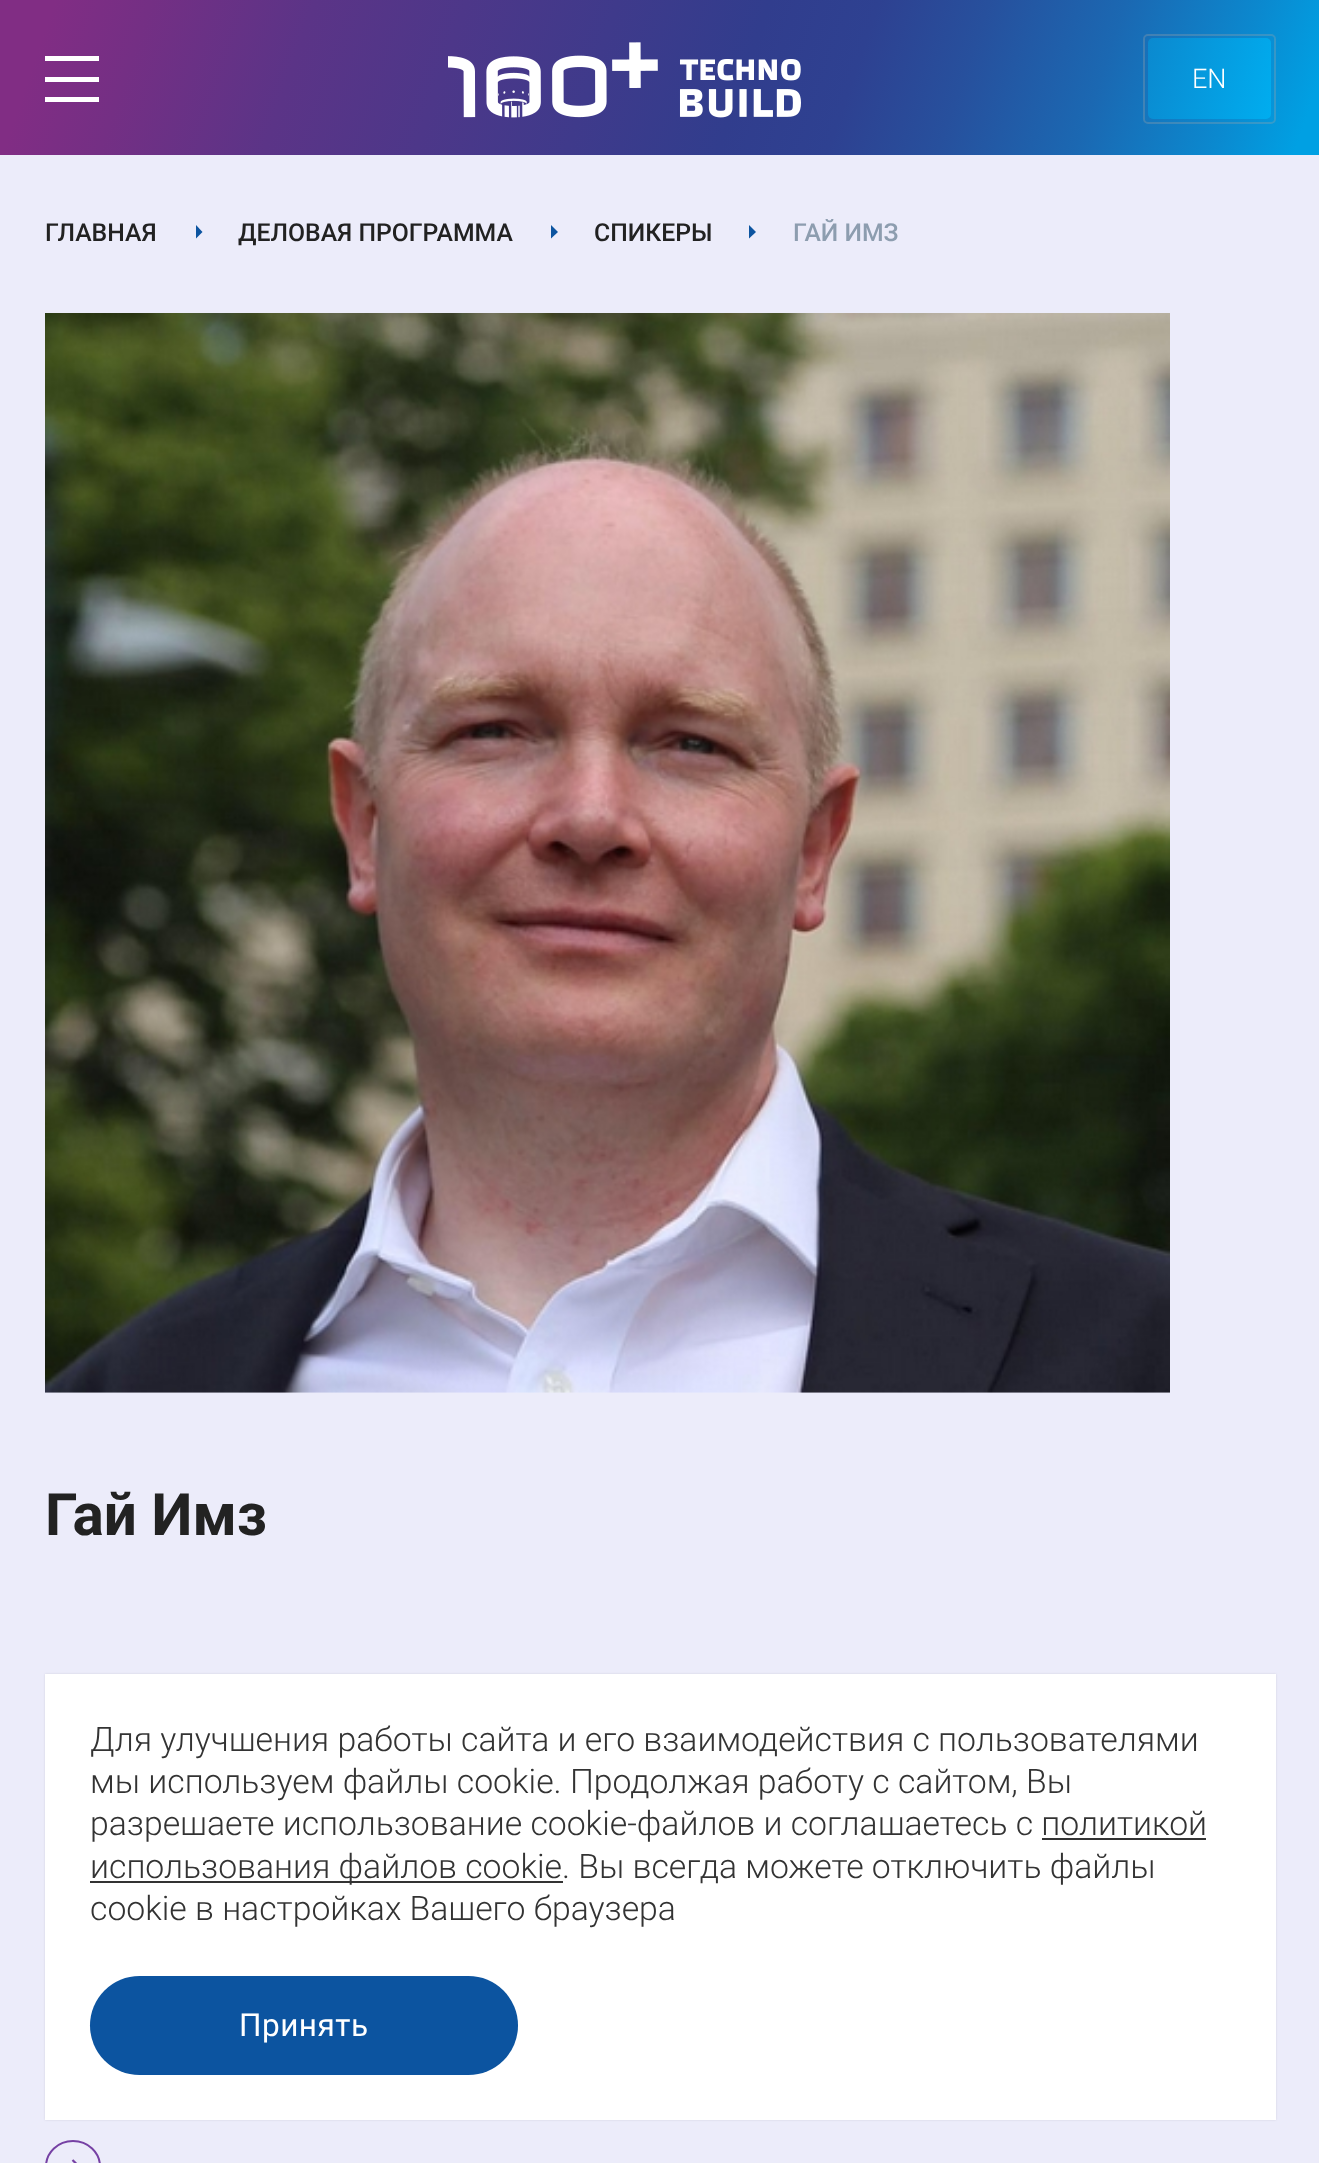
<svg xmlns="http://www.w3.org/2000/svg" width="1319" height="2163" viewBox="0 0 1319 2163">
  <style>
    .t1 { font: 300 27px Roboto; fill: #fff; }
    .t2 { font: 500 24.75px Roboto; fill: #222; }
    .t3 { font: 500 24.75px Roboto; fill: #8d9daf; }
    .t4 { font: bold 58.5px Roboto; fill: #222; }
    .t5 { font: 300 33.75px Roboto; fill: #333; }
    .t6 { font: 31.5px Roboto; letter-spacing: 0.5px; fill: #fff; }
  </style>
  <defs>
    <linearGradient id="g1" gradientUnits="userSpaceOnUse" x1="46" y1="-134" x2="1275" y2="289"><stop offset="0.04" stop-color="#812d84"/><stop offset="0.11" stop-color="#742f84"/><stop offset="0.23" stop-color="#5b3487"/><stop offset="0.56" stop-color="#313d8d"/><stop offset="0.64" stop-color="#2e4191"/><stop offset="0.72" stop-color="#27509d"/><stop offset="0.82" stop-color="#1b68b2"/><stop offset="0.92" stop-color="#0b89cf"/><stop offset="0.98" stop-color="#00a0e3"/></linearGradient>
    <linearGradient id="g2" gradientUnits="userSpaceOnUse" x1="1142" y1="61" x2="1277" y2="97"><stop offset="0" stop-color="#0b89cf"/><stop offset="1" stop-color="#00adef"/></linearGradient>
  </defs>
  <rect width="100%" height="100%" fill="#ececfa"/>
  <rect x="0" y="0" width="1319" height="155" fill="url(#g1)"/>
  <rect x="45" y="56" width="54" height="5" fill="#fff"/>
  <rect x="45" y="97" width="54" height="5" fill="#fff"/>
  <rect x="45" y="77" width="54" height="5" fill="#fff"/>
  <image x="448" y="42" width="353" height="76" href="images/1.png"/>
  <rect x="1144" y="35" width="131" height="88" rx="4" fill="none" stroke="#a7a7a74d" stroke-width="2"/>
  <rect x="1148" y="38" width="123" height="81" rx="5" fill="url(#g2)"/>
  <text x="1192" y="88" class="t1">EN</text>
  <text x="45" y="241" class="t2">ГЛАВНАЯ</text>
  <path d="M196 238.5V225L202.5 232Z" fill="#0c54a0"/>
  <text x="238" y="241" class="t2">ДЕЛОВАЯ ПРОГРАММА</text>
  <path d="M551 238.5V225L558 232Z" fill="#0c54a0"/>
  <text x="594" y="241" class="t2">СПИКЕРЫ</text>
  <path d="M749 238.5V225L756 232Z" fill="#0c54a0"/>
  <text x="793" y="241" class="t3">ГАЙ ИМЗ</text>
  <image x="45" y="313" width="1125" height="1080" href="images/2.png"/>
  <text x="45" y="1535" class="t4">Гай Имз</text>
  <path d="M65 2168H80.5M80.5 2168L72.5 2160M80.5 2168L72.5 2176" fill="none" stroke="#7641a4" stroke-width="2.2"/>
  <rect x="46" y="2141" width="54" height="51" rx="27" fill="none" stroke="#7641a4" stroke-width="2"/>
  <rect x="45" y="1674" width="1231" height="446" fill="#0000001a" filter="blur(1px)"/>
  <rect x="45" y="1674" width="1231" height="446" fill="#fff"/>
  <text x="90" y="1751" class="t5">Для улучшения работы сайта и его взаимодействия с пользователями</text>
  <text x="90" y="1793" class="t5">мы используем файлы cookie. Продолжая работу с сайтом, Вы</text>
  <text x="90" y="1835" class="t5">разрешаете использование cookie-файлов и соглашаетесь с политикой</text>
  <rect x="90" y="1881" width="473" height="2" fill="#333"/>
  <text x="90" y="1878" class="t5">использования файлов cookie. Вы всегда можете отключить файлы</text>
  <rect x="1042" y="1838" width="164" height="2" fill="#333"/>
  <text x="90" y="1920" class="t5">cookie в настройках Вашего браузера</text>
  <rect x="90" y="1976" width="428" height="99" rx="49.5" fill="#0c54a0"/>
  <text x="239" y="2036" class="t6">Принять</text>
</svg>
